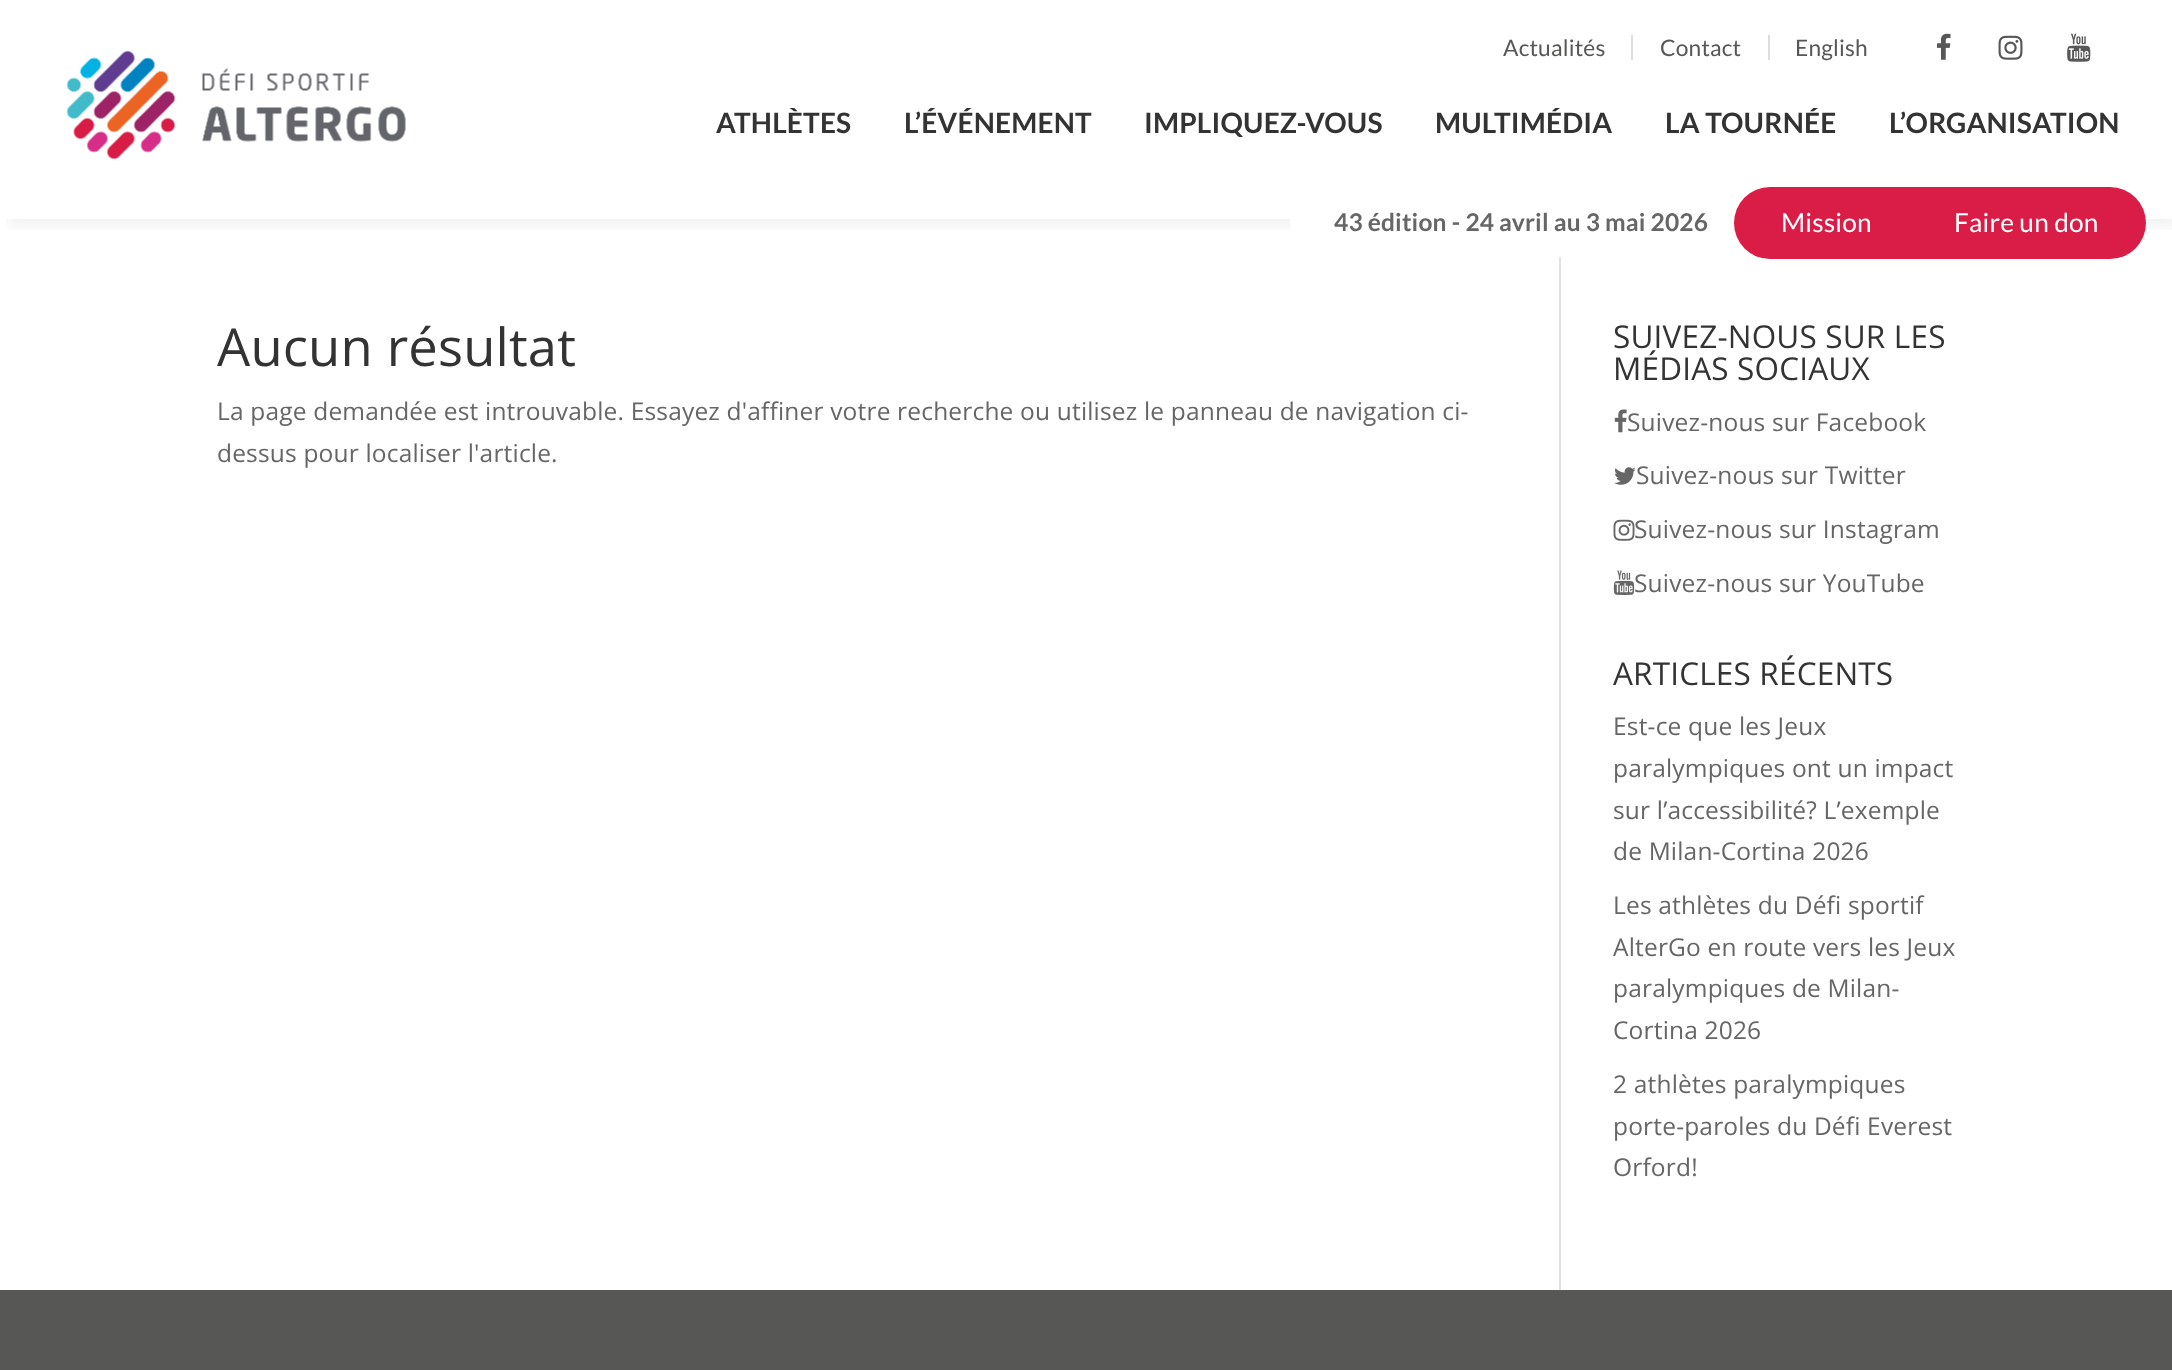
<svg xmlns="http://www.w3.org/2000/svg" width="2172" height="1370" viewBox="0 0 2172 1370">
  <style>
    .t1 { font: 22.75px Lato; letter-spacing: 0.18px; fill: #575756; }
    .t2 { font: bold 28px Lato; letter-spacing: 0.18px; fill: #333; }
    .t3 { font: bold 24.5px Lato; letter-spacing: 0.18px; fill: #666; }
    .t4 { font: 26.25px Lato; letter-spacing: 0.18px; fill: #fff; }
    .t5 { font: 52.5px Open Sans; letter-spacing: 0.18px; fill: #333; }
    .t6 { font: 24.5px Open Sans; letter-spacing: 0.18px; fill: #666; }
    .t7 { font: 31.5px Open Sans; letter-spacing: 0.18px; fill: #333; }
  </style>
  <defs>
    <clipPath id="clip1"><rect x="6" y="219" width="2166" height="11"/></clipPath>
  </defs>
  <rect width="100%" height="100%" fill="#fff"/>
  <g clip-path="url(#clip1)">
    <rect x="7" y="7" width="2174" height="219" fill="#0000000f" filter="blur(9px)"/>
  </g>
  <image x="66" y="50" width="340" height="110" href="images/1.png"/>
  <text x="1503" y="56" class="t1">Actualités</text>
  <rect x="1631" y="35" width="2" height="25" fill="#ddd"/>
  <text x="1660" y="56" class="t1">Contact</text>
  <rect x="1768" y="35" width="2" height="25" fill="#ddd"/>
  <text x="1795" y="56" class="t1">English</text>
  <image x="1937" y="33" width="14" height="27" href="images/2.png"/>
  <image x="1998" y="35" width="25" height="25" href="images/3.png"/>
  <image x="2067" y="33" width="24" height="29" href="images/4.png"/>
  <text x="716" y="133" class="t2">ATHLÈTES</text>
  <text x="904" y="133" class="t2">L’ÉVÉNEMENT</text>
  <text x="1144" y="133" class="t2">IMPLIQUEZ-VOUS</text>
  <text x="1435" y="133" class="t2">MULTIMÉDIA</text>
  <text x="1665" y="133" class="t2">LA TOURNÉE</text>
  <text x="1889" y="133" class="t2">L’ORGANISATION</text>
  <rect x="1290" y="187" width="514" height="70" rx="35" fill="#fff"/>
  <text x="1334" y="231" class="t3">43 édition - 24 avril au 3 mai 2026</text>
  <rect x="1734" y="187" width="412" height="72" rx="36" fill="#da1d46"/>
  <text x="1781" y="232" class="t4">Mission</text>
  <text x="1954" y="232" class="t4">Faire un don</text>
  <rect x="1559" y="257" width="2" height="1033" fill="#e2e2e2"/>
  <text x="217" y="366" class="t5">Aucun résultat</text>
  <text x="217" y="420" class="t6">La page demandée est introuvable. Essayez d'affiner votre recherche ou utilisez le panneau de navigation ci-</text>
  <text x="217" y="462" class="t6">dessus pour localiser l'article.</text>
  <text x="1613" y="348" class="t7">SUIVEZ-NOUS SUR LES</text>
  <text x="1613" y="380" class="t7">MÉDIAS SOCIAUX</text>
  <image x="1614" y="409" width="13" height="24" href="images/5.png"/>
  <text x="1627" y="431" class="t6">Suivez-nous sur Facebook</text>
  <image x="1614" y="467" width="22" height="18" href="images/6.png"/>
  <text x="1636" y="484" class="t6">Suivez-nous sur Twitter</text>
  <image x="1613" y="519" width="22" height="22" href="images/7.png"/>
  <text x="1634" y="538" class="t6">Suivez-nous sur Instagram</text>
  <image x="1613" y="570" width="22" height="25" href="images/8.png"/>
  <text x="1634" y="592" class="t6">Suivez-nous sur YouTube</text>
  <text x="1613" y="685" class="t7">ARTICLES RÉCENTS</text>
  <text x="1613" y="735" class="t6">Est-ce que les Jeux</text>
  <text x="1613" y="777" class="t6">paralympiques ont un impact</text>
  <text x="1613" y="819" class="t6">sur l’accessibilité? L’exemple</text>
  <text x="1613" y="860" class="t6">de Milan-Cortina 2026</text>
  <text x="1613" y="914" class="t6">Les athlètes du Défi sportif</text>
  <text x="1613" y="956" class="t6">AlterGo en route vers les Jeux</text>
  <text x="1613" y="997" class="t6">paralympiques de Milan-</text>
  <text x="1613" y="1039" class="t6">Cortina 2026</text>
  <text x="1613" y="1093" class="t6">2 athlètes paralympiques</text>
  <text x="1613" y="1135" class="t6">porte-paroles du Défi Everest</text>
  <text x="1613" y="1176" class="t6">Orford!</text>
  <rect x="0" y="1290" width="2172" height="80" fill="#575756"/>
</svg>
